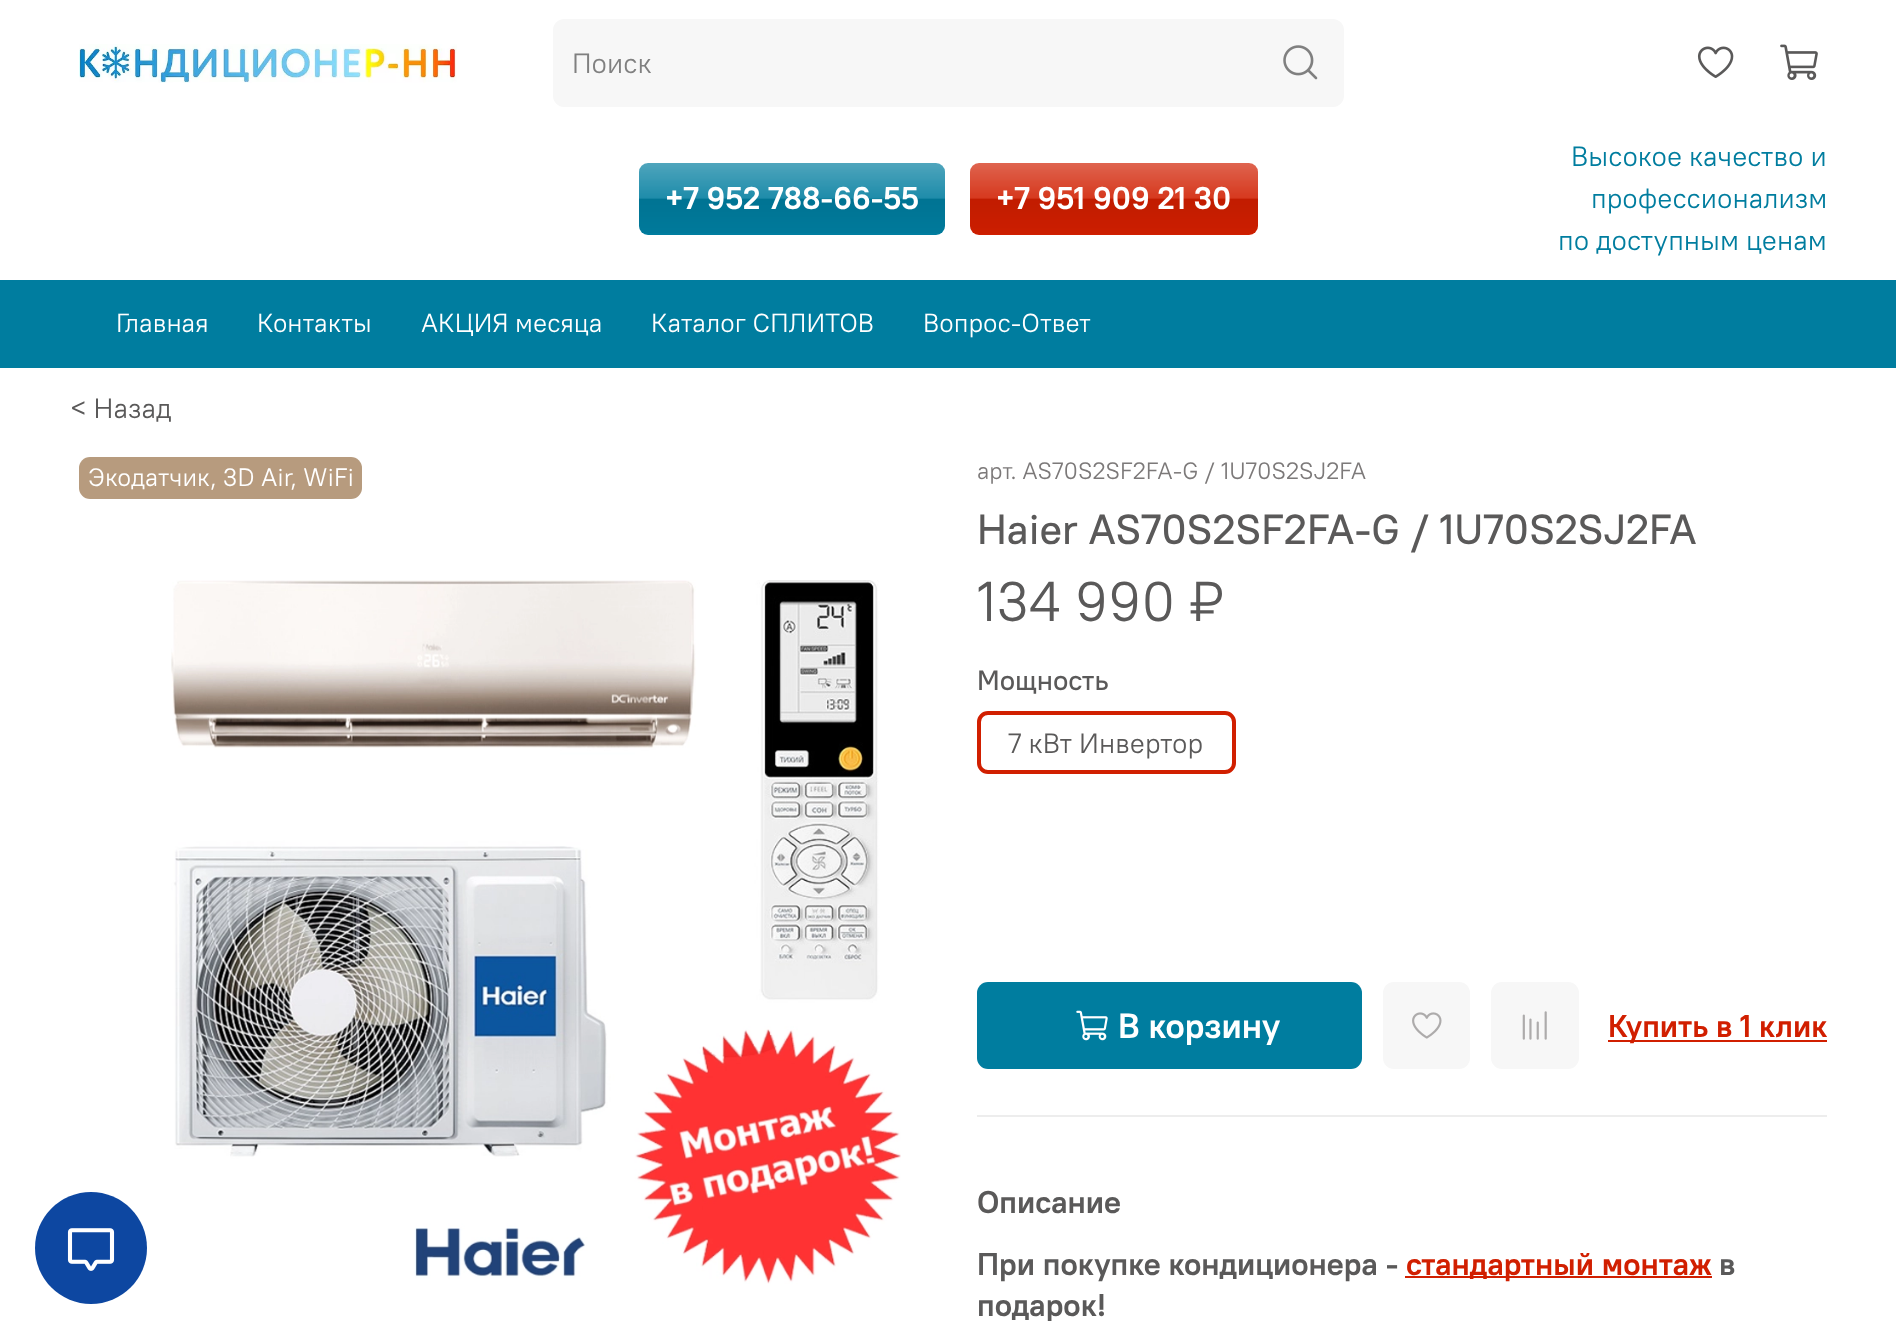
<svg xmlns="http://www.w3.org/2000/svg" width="1896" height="1321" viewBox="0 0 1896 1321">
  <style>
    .t1 { font: 28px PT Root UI; fill: #808080; }
    .t2 { font: bold 31.5px PT Root UI; fill: #fff; }
    .t3 { font: 28px PT Root UI; fill: #007d9f; }
    .t4 { font: 26.25px PT Root UI; fill: #fff; }
    .t5 { font: 28px PT Root UI; fill: #5a5959; }
    .t6 { font: 25.25px PT Root UI; fill: #fff; }
    .t7 { font: 23.75px PT Root UI; fill: #7c7979; }
    .t8 { font: 500 42px PT Root UI; fill: #5a5959; }
    .t9 { font: 56px PT Root UI; fill: #5a5959; }
    .t10 { font: 500 28px PT Root UI; fill: #5a5959; }
    .t11 { font: bold 35px PT Root UI; fill: #fff; }
    .t12 { font: bold 31.5px PT Root UI; fill: #d11f00; }
    .t13 { font: bold 31.5px PT Root UI; fill: #5a5959; }
  </style>
  <rect width="100%" height="100%" fill="#fff"/>
  <image x="79" y="44" width="378" height="39" href="images/1.png"/>
  <path d="M564 19H1257V107H564C558 107 553 102 553 96V30C553 24 558 19 564 19Z" fill="#f7f7f7"/>
  <text x="572" y="73" class="t1">Поиск</text>
  <path d="M1257 19H1333C1339 19 1344 24 1344 30V96C1344 102 1339 107 1333 107H1257Z" fill="#f7f7f7"/>
  <image x="1283" y="45" width="35" height="35" href="images/2.png"/>
  <image x="1697" y="46" width="37" height="32" href="images/3.png"/>
  <image x="1780" y="44" width="38" height="36" href="images/4.png"/>
  <rect x="639" y="163" width="306" height="72" rx="9" fill="#007d9f"/>
  <image x="639" y="163" width="306" height="70" href="images/5.png"/>
  <text x="665" y="209" class="t2">+7 952 788-66-55</text>
  <rect x="970" y="163" width="288" height="72" rx="9" fill="#d11f00"/>
  <image x="970" y="163" width="288" height="71" href="images/6.png"/>
  <text x="996" y="209" class="t2">+7 951 909 21 30</text>
  <text x="1571" y="166" class="t3">Высокое качество и</text>
  <text x="1591" y="208" class="t3">профессионализм</text>
  <text x="1558" y="250" class="t3">по доступным ценам</text>
  <rect x="0" y="280" width="1896" height="88" fill="#007d9f"/>
  <text x="116" y="332" class="t4">Главная</text>
  <text x="257" y="332" class="t4">Контакты</text>
  <text x="421" y="332" class="t4">АКЦИЯ месяца</text>
  <text x="651" y="332" class="t4">Каталог СПЛИТОВ</text>
  <text x="923" y="332" class="t4">Вопрос-Ответ</text>
  <text x="70" y="418" class="t5">&lt; Назад</text>
  <rect x="79" y="457" width="283" height="42" rx="11" fill="#b79b7e"/>
  <text x="88" y="486" class="t6">Экодатчик, 3D Air, WiFi</text>
  <image x="171" y="580" width="730" height="704" href="images/7.png"/>
  <text x="977" y="479" class="t7">арт. AS70S2SF2FA-G / 1U70S2SJ2FA</text>
  <text x="977" y="544" class="t8">Haier AS70S2SF2FA-G / 1U70S2SJ2FA</text>
  <text x="977" y="621" class="t9">134 990 ₽</text>
  <text x="977" y="690" class="t10">Мощность</text>
  <rect x="979" y="713" width="255" height="59" rx="9" fill="none" stroke="#d11f00" stroke-width="4"/>
  <text x="1008" y="753" class="t5">7 кВт Инвертор</text>
  <rect x="977" y="982" width="385" height="87" rx="11" fill="#007d9f"/>
  <image x="1076" y="1010" width="32" height="31" href="images/8.png"/>
  <text x="1118" y="1038" class="t11">В корзину</text>
  <rect x="1383" y="982" width="87" height="87" rx="11" fill="#f7f7f7"/>
  <image x="1412" y="1012" width="30" height="27" href="images/9.png"/>
  <rect x="1491" y="982" width="88" height="87" rx="11" fill="#f7f7f7"/>
  <image x="1522" y="1011" width="25" height="29" href="images/10.png"/>
  <rect x="1608" y="1040" width="219" height="2" fill="#d11f00"/>
  <text x="1608" y="1037" class="t12">Купить в 1 клик</text>
  <rect x="977" y="1115" width="850" height="2" fill="#ededed"/>
  <text x="977" y="1213" class="t13">Описание</text>
  <text x="977" y="1275" class="t13">При покупке кондиционера -</text>
  <rect x="1405" y="1276" width="307" height="2" fill="#d11f00"/>
  <text x="1406" y="1275" class="t12">стандартный монтаж</text>
  <text x="1719" y="1275" class="t13">в</text>
  <text x="977" y="1316" class="t13">подарок!</text>
  <circle cx="91" cy="1248" r="56" fill="#0d47a1"/>
  <image x="67" y="1228" width="48" height="43" href="images/11.png"/>
</svg>
